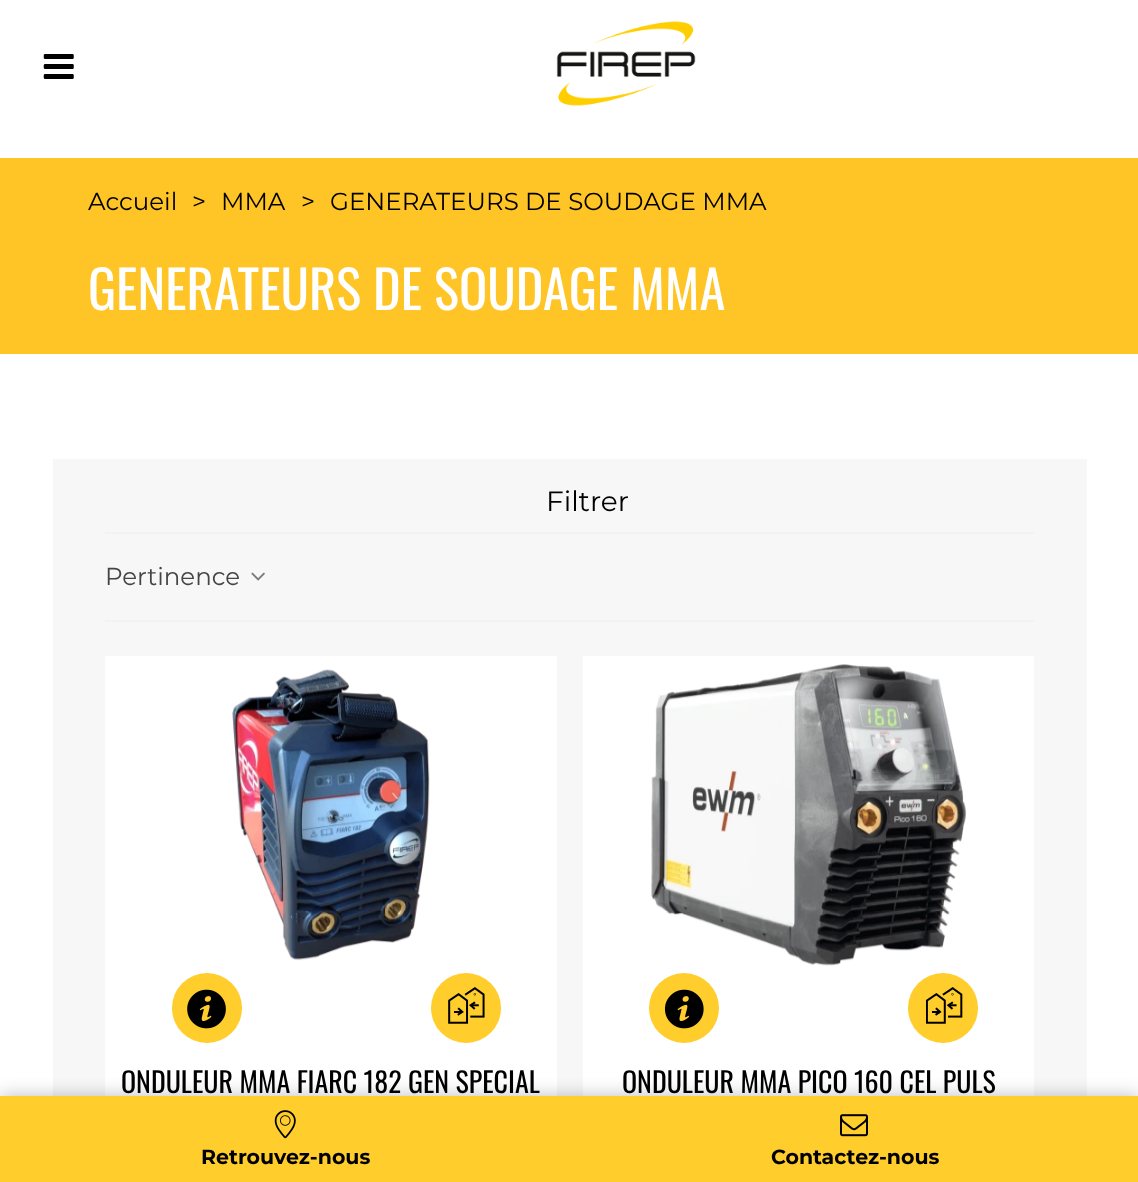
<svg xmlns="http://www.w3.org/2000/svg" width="1138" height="1182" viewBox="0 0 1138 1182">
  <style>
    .t1 { font: 24.5px Montserrat; fill: #000; }
    .t2 { font: 52.5px Oswald; fill: #fff; }
    .t3 { font: 28px Montserrat; fill: #000; }
    .t4 { font: 24.5px Montserrat; fill: #444; }
    .t5 { font: 28px Oswald; fill: #000; }
    .t6 { font: bold 20.5px Montserrat; fill: #000; }
  </style>
  <rect width="100%" height="100%" fill="#fff"/>
  <image x="43" y="54" width="31" height="25" href="images/1.png"/>
  <image x="556" y="21" width="140" height="85" href="images/2.png"/>
  <rect x="0" y="158" width="1138" height="196" fill="#ffc425"/>
  <text x="88" y="210" class="t1">Accueil</text>
  <text x="192" y="210" class="t1">&gt;</text>
  <text x="221" y="210" class="t1">MMA</text>
  <text x="301" y="210" class="t1">&gt;</text>
  <text x="330" y="210" class="t1">GENERATEURS DE SOUDAGE MMA</text>
  <text x="88" y="310" class="t2">GENERATEURS DE SOUDAGE MMA</text>
  <rect x="53" y="459" width="1034" height="637" fill="#f7f7f7"/>
  <text x="546" y="511" class="t3">Filtrer</text>
  <rect x="105" y="532" width="929" height="2" fill="#f2f2f2"/>
  <rect x="105" y="620" width="929" height="2" fill="#f2f2f2"/>
  <text x="105" y="585" class="t4">Pertinence</text>
  <image x="251" y="572" width="14" height="9" href="images/3.png"/>
  <rect x="105" y="656" width="452" height="440" fill="#fff"/>
  <image x="232" y="669" width="198" height="292" href="images/4.png"/>
  <circle cx="207" cy="1008" r="35" fill="#ffcd2c"/>
  <image x="187" y="989" width="39" height="40" href="images/5.png"/>
  <circle cx="466" cy="1008" r="35" fill="#ffcd2c"/>
  <image x="448" y="987" width="37" height="37" href="images/6.png"/>
  <text x="121" y="1093" class="t5">ONDULEUR MMA FIARC 182 GEN SPECIAL</text>
  <rect x="583" y="656" width="451" height="440" fill="#fff"/>
  <image x="651" y="664" width="316" height="302" href="images/7.png"/>
  <circle cx="684" cy="1008" r="35" fill="#ffcd2c"/>
  <image x="664" y="989" width="40" height="40" href="images/8.png"/>
  <circle cx="943" cy="1008" r="35" fill="#ffcd2c"/>
  <image x="926" y="987" width="37" height="37" href="images/9.png"/>
  <text x="622" y="1093" class="t5">ONDULEUR MMA PICO 160 CEL PULS</text>
  <rect x="0" y="1096" width="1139" height="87" fill="#00000042" filter="blur(9px)"/>
  <rect x="0" y="1096" width="1138" height="86" fill="#ffcd2c"/>
  <image x="274" y="1110" width="22" height="29" href="images/10.png"/>
  <text x="201" y="1164" class="t6">Retrouvez-nous</text>
  <image x="840" y="1114" width="28" height="23" href="images/11.png"/>
  <text x="771" y="1164" class="t6">Contactez-nous</text>
</svg>
